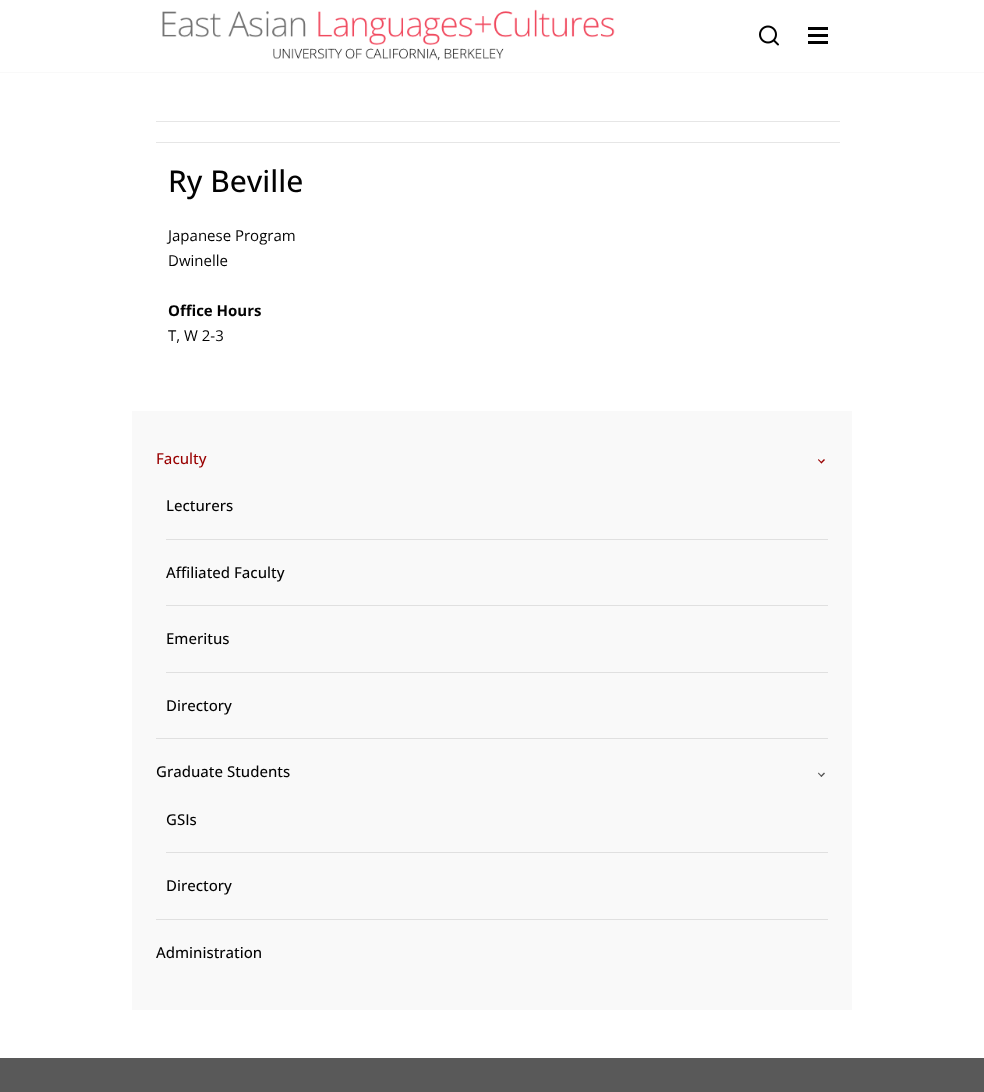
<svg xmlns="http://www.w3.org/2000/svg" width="984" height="1092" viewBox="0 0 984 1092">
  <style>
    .t1 { font: 500 30px Open Sans; fill: #020202; }
    .t2 { font: 15px Open Sans; fill: #020202; }
    .t3 { font: bold 15px Open Sans; fill: #020202; }
    .t4 { font: 500 15px Open Sans; fill: #900; }
    .t5 { font: 500 15px Open Sans; fill: #020202; }
  </style>
  <rect width="100%" height="100%" fill="#fff"/>
  <rect x="0" y="72" width="984" height="1" fill="#f9f9f9"/>
  <image x="162" y="9" width="453" height="52" href="images/1.png"/>
  <image x="759" y="25" width="20" height="21" href="images/2.png"/>
  <rect x="808" y="27" width="20" height="3" fill="#020202"/>
  <rect x="808" y="34" width="20" height="3" fill="#020202"/>
  <rect x="808" y="41" width="20" height="3" fill="#020202"/>
  <rect x="156" y="121" width="684" height="1" fill="#e6e6e6"/>
  <rect x="156" y="142" width="684" height="1" fill="#e6e6e6"/>
  <text x="168" y="192" class="t1">Ry Beville</text>
  <text x="168" y="241" class="t2">Japanese Program</text>
  <text x="168" y="266" class="t2">Dwinelle</text>
  <text x="168" y="316" class="t3">Office Hours</text>
  <text x="168" y="341" class="t2">T, W 2-3</text>
  <rect x="132" y="411" width="720" height="599" fill="#f9f9f9"/>
  <rect x="156" y="738" width="672" height="1" fill="#e0e0e0"/>
  <text x="156" y="464" class="t4">Faculty</text>
  <path d="M824 459L825 460L821.5 463.5L820.5 462.5Z" fill="#900"/>
  <path d="M818.5 459L822 462.5L821.5 463.5L818 460Z" fill="#900"/>
  <rect x="166" y="539" width="662" height="1" fill="#e0e0e0"/>
  <text x="166" y="511" class="t5">Lecturers</text>
  <rect x="166" y="605" width="662" height="1" fill="#e0e0e0"/>
  <text x="166" y="578" class="t5">Affiliated Faculty</text>
  <rect x="166" y="672" width="662" height="1" fill="#e0e0e0"/>
  <text x="166" y="644" class="t5">Emeritus</text>
  <text x="166" y="711" class="t5">Directory</text>
  <rect x="156" y="919" width="672" height="1" fill="#e0e0e0"/>
  <text x="156" y="777" class="t5">Graduate Students</text>
  <path d="M824 772.5L825 773.5L821.5 777L820.5 776Z" fill="#555"/>
  <path d="M818.5 772.5L822 776L821.5 777L818 773.5Z" fill="#555"/>
  <rect x="166" y="852" width="662" height="1" fill="#e0e0e0"/>
  <text x="166" y="825" class="t5">GSIs</text>
  <text x="166" y="891" class="t5">Directory</text>
  <text x="156" y="958" class="t5">Administration</text>
  <rect x="0" y="1058" width="984" height="34" fill="#595959"/>
</svg>
